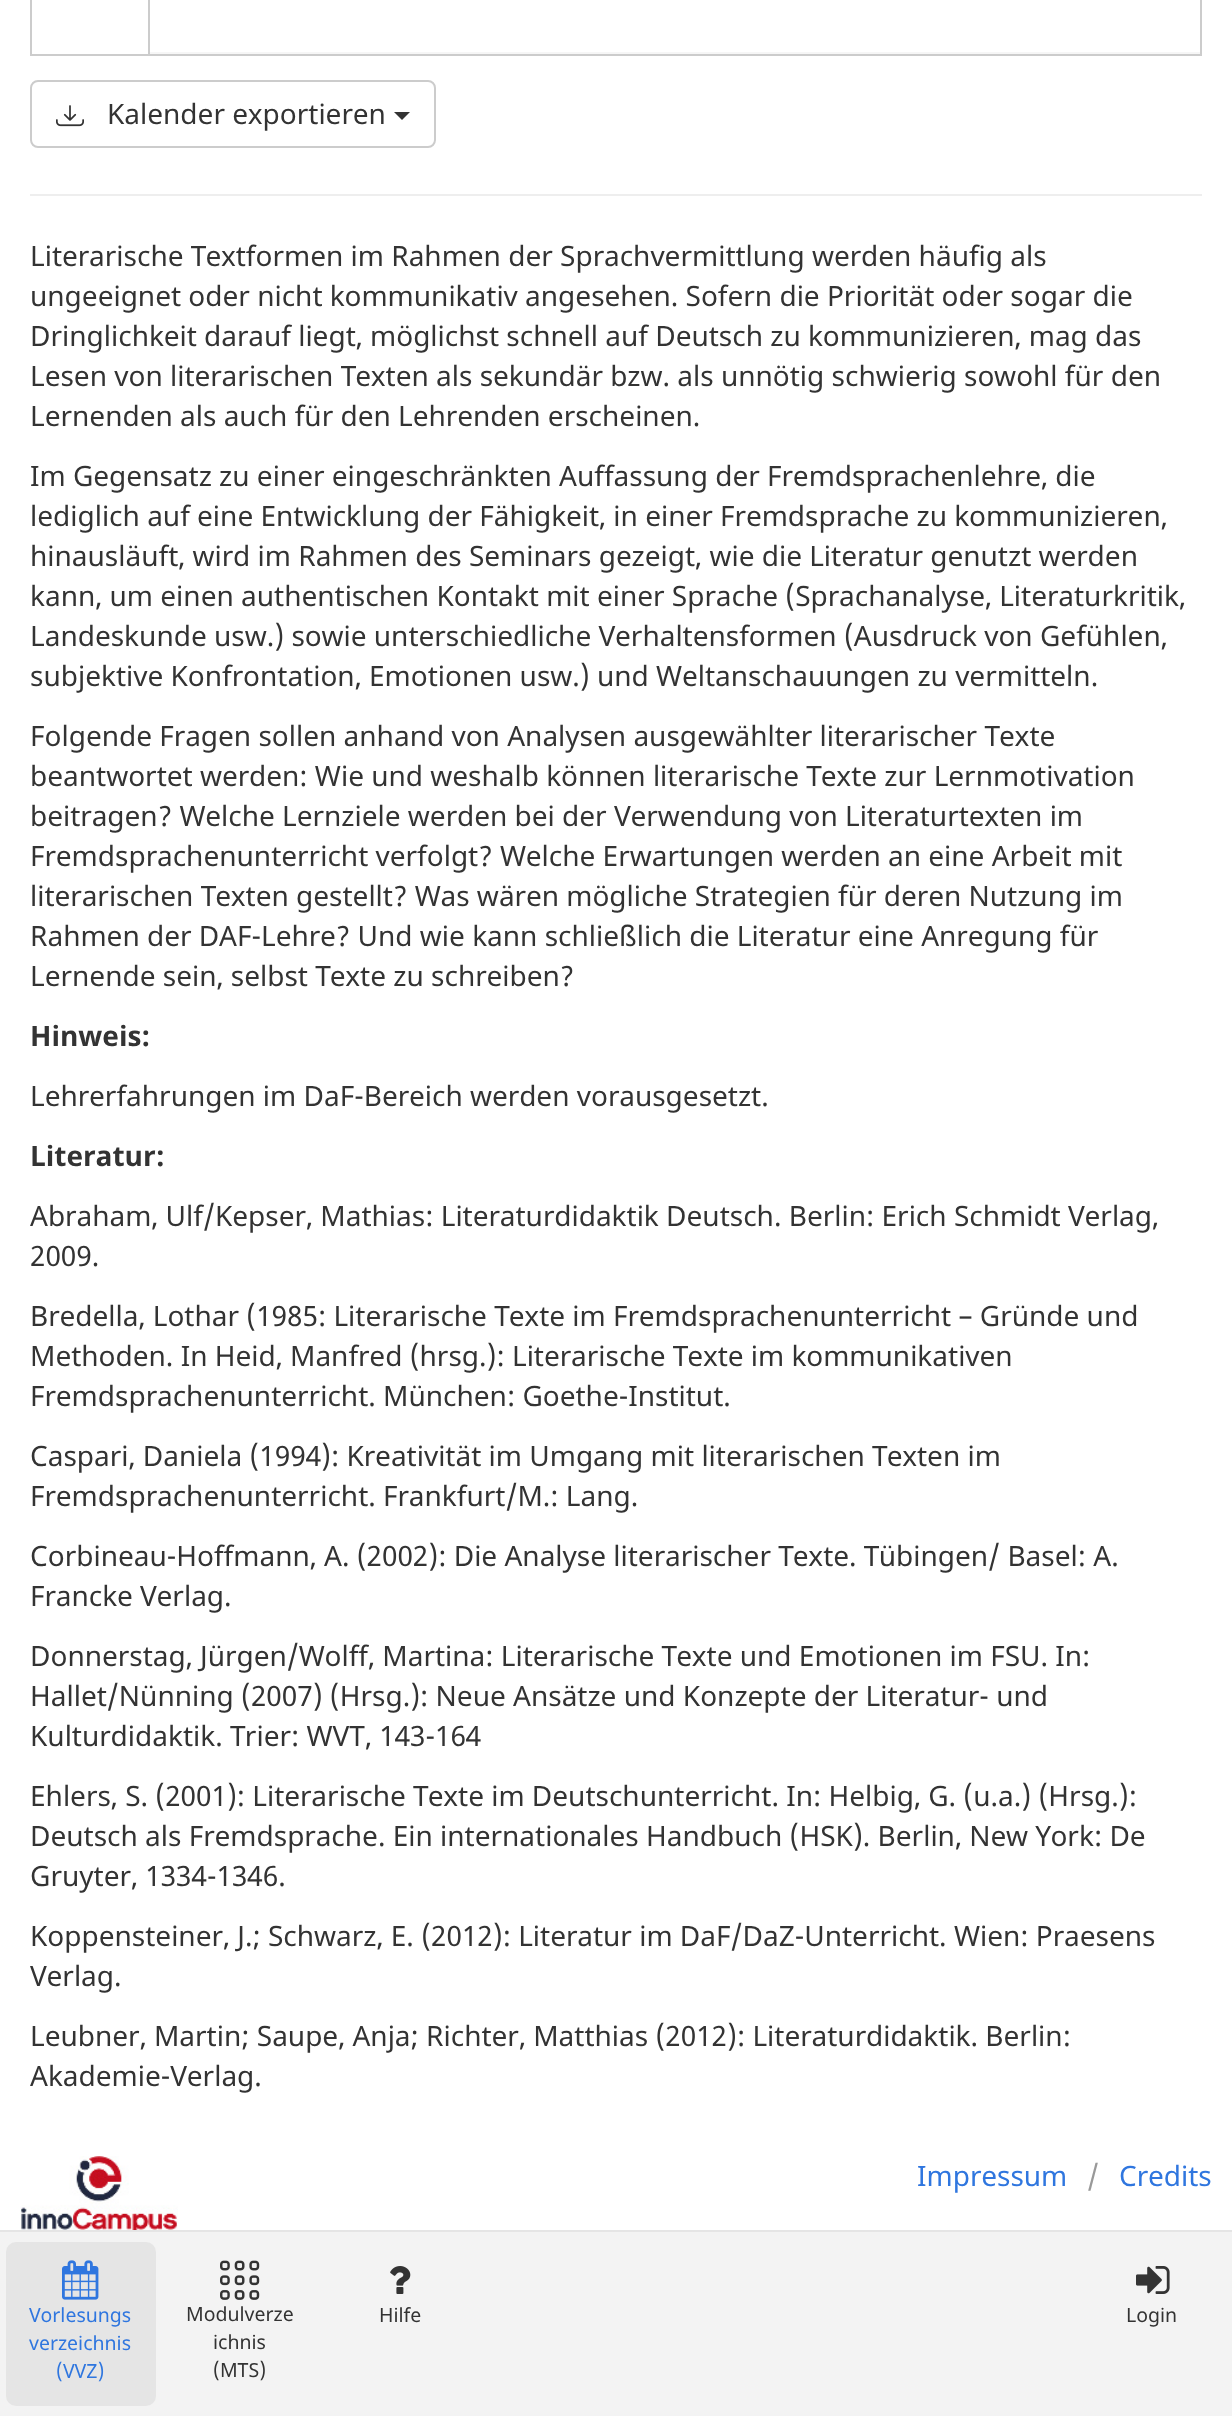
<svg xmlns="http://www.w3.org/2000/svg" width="1232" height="2416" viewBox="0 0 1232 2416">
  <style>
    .t1 { font: 28px Noto Sans; fill: #333; }
    .t2 { font: bold 28px Noto Sans; fill: #333; }
    .t3 { font: 28px Noto Sans; fill: #2f76df; }
    .t4 { font: 28px Noto Sans; fill: #999; }
    .t5 { font: 19.5px Noto Sans; fill: #2f76df; }
    .t6 { font: 19.5px Noto Sans; fill: #333; }
  </style>
  <rect width="100%" height="100%" fill="#fff"/>
  <rect x="31" y="-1" width="118" height="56" fill="none" stroke="#ccc" stroke-width="2"/>
  <rect x="1200" y="0" width="2" height="56" fill="#ccc"/>
  <rect x="150" y="54" width="1052" height="2" fill="#ccc"/>
  <rect x="150" y="52" width="1050" height="2" fill="#f6f6f6"/>
  <rect x="31" y="81" width="404" height="66" rx="7" fill="none" stroke="#ccc" stroke-width="2"/>
  <image x="56" y="105" width="28" height="22" href="images/1.png"/>
  <text x="107" y="124" class="t1">Kalender exportieren</text>
  <path d="M394 112H410L402 120Z" fill="#333"/>
  <rect x="30" y="194" width="1172" height="2" fill="#eee"/>
  <text x="30" y="266" class="t1">Literarische Textformen im Rahmen der Sprachvermittlung werden häufig als</text>
  <text x="30" y="306" class="t1">ungeeignet oder nicht kommunikativ angesehen. Sofern die Priorität oder sogar die</text>
  <text x="30" y="346" class="t1">Dringlichkeit darauf liegt, möglichst schnell auf Deutsch zu kommunizieren, mag das</text>
  <text x="30" y="386" class="t1">Lesen von literarischen Texten als sekundär bzw. als unnötig schwierig sowohl für den</text>
  <text x="30" y="426" class="t1">Lernenden als auch für den Lehrenden erscheinen.</text>
  <text x="30" y="486" class="t1">Im Gegensatz zu einer eingeschränkten Auffassung der Fremdsprachenlehre, die</text>
  <text x="30" y="526" class="t1">lediglich auf eine Entwicklung der Fähigkeit, in einer Fremdsprache zu kommunizieren,</text>
  <text x="30" y="566" class="t1">hinausläuft, wird im Rahmen des Seminars gezeigt, wie die Literatur genutzt werden</text>
  <text x="30" y="606" class="t1">kann, um einen authentischen Kontakt mit einer Sprache (Sprachanalyse, Literaturkritik,</text>
  <text x="30" y="646" class="t1">Landeskunde usw.) sowie unterschiedliche Verhaltensformen (Ausdruck von Gefühlen,</text>
  <text x="30" y="686" class="t1">subjektive Konfrontation, Emotionen usw.) und Weltanschauungen zu vermitteln.</text>
  <text x="30" y="746" class="t1">Folgende Fragen sollen anhand von Analysen ausgewählter literarischer Texte</text>
  <text x="30" y="786" class="t1">beantwortet werden: Wie und weshalb können literarische Texte zur Lernmotivation</text>
  <text x="30" y="826" class="t1">beitragen? Welche Lernziele werden bei der Verwendung von Literaturtexten im</text>
  <text x="30" y="866" class="t1">Fremdsprachenunterricht verfolgt? Welche Erwartungen werden an eine Arbeit mit</text>
  <text x="30" y="906" class="t1">literarischen Texten gestellt? Was wären mögliche Strategien für deren Nutzung im</text>
  <text x="30" y="946" class="t1">Rahmen der DAF-Lehre? Und wie kann schließlich die Literatur eine Anregung für</text>
  <text x="30" y="986" class="t1">Lernende sein, selbst Texte zu schreiben?</text>
  <text x="30" y="1046" class="t2">Hinweis:</text>
  <text x="30" y="1106" class="t1">Lehrerfahrungen im DaF-Bereich werden vorausgesetzt.</text>
  <text x="30" y="1166" class="t2">Literatur:</text>
  <text x="30" y="1226" class="t1">Abraham, Ulf/Kepser, Mathias: Literaturdidaktik Deutsch. Berlin: Erich Schmidt Verlag,</text>
  <text x="30" y="1266" class="t1">2009.</text>
  <text x="30" y="1326" class="t1">Bredella, Lothar (1985: Literarische Texte im Fremdsprachenunterricht – Gründe und</text>
  <text x="30" y="1366" class="t1">Methoden. In Heid, Manfred (hrsg.): Literarische Texte im kommunikativen</text>
  <text x="30" y="1406" class="t1">Fremdsprachenunterricht. München: Goethe-Institut.</text>
  <text x="30" y="1466" class="t1">Caspari, Daniela (1994): Kreativität im Umgang mit literarischen Texten im</text>
  <text x="30" y="1506" class="t1">Fremdsprachenunterricht. Frankfurt/M.: Lang.</text>
  <text x="30" y="1566" class="t1">Corbineau-Hoffmann, A. (2002): Die Analyse literarischer Texte. Tübingen/ Basel: A.</text>
  <text x="30" y="1606" class="t1">Francke Verlag.</text>
  <text x="30" y="1666" class="t1">Donnerstag, Jürgen/Wolff, Martina: Literarische Texte und Emotionen im FSU. In:</text>
  <text x="30" y="1706" class="t1">Hallet/Nünning (2007) (Hrsg.): Neue Ansätze und Konzepte der Literatur- und</text>
  <text x="30" y="1746" class="t1">Kulturdidaktik. Trier: WVT, 143-164</text>
  <text x="30" y="1806" class="t1">Ehlers, S. (2001): Literarische Texte im Deutschunterricht. In: Helbig, G. (u.a.) (Hrsg.):</text>
  <text x="30" y="1846" class="t1">Deutsch als Fremdsprache. Ein internationales Handbuch (HSK). Berlin, New York: De</text>
  <text x="30" y="1886" class="t1">Gruyter, 1334-1346.</text>
  <text x="30" y="1946" class="t1">Koppensteiner, J.; Schwarz, E. (2012): Literatur im DaF/DaZ-Unterricht. Wien: Praesens</text>
  <text x="30" y="1986" class="t1">Verlag.</text>
  <text x="30" y="2046" class="t1">Leubner, Martin; Saupe, Anja; Richter, Matthias (2012): Literaturdidaktik. Berlin:</text>
  <text x="30" y="2086" class="t1">Akademie-Verlag.</text>
  <image x="20" y="2156" width="158" height="74" href="images/2.png"/>
  <text x="917" y="2186" class="t3">Impressum</text>
  <text x="1087" y="2186" class="t4">/</text>
  <text x="1119" y="2186" class="t3">Credits</text>
  <rect x="0" y="2232" width="1232" height="184" fill="#f3f3f3"/>
  <rect x="0" y="2230" width="1232" height="2" fill="#e5e5e5"/>
  <rect x="6" y="2242" width="150" height="164" rx="10" fill="#e5e5e5"/>
  <image x="62" y="2260" width="37" height="40" href="images/3.png"/>
  <text x="29" y="2322" class="t5">Vorlesungs</text>
  <text x="29" y="2350" class="t5">verzeichnis</text>
  <text x="56" y="2378" class="t5">(VVZ)</text>
  <image x="220" y="2260" width="40" height="40" href="images/4.png"/>
  <text x="186" y="2321" class="t6">Modulverze</text>
  <text x="213" y="2349" class="t6">ichnis</text>
  <text x="213" y="2377" class="t6">(MTS)</text>
  <image x="390" y="2266" width="21" height="28" href="images/5.png"/>
  <text x="379" y="2322" class="t6">Hilfe</text>
  <image x="1136" y="2266" width="34" height="28" href="images/6.png"/>
  <text x="1126" y="2322" class="t6">Login</text>
</svg>
